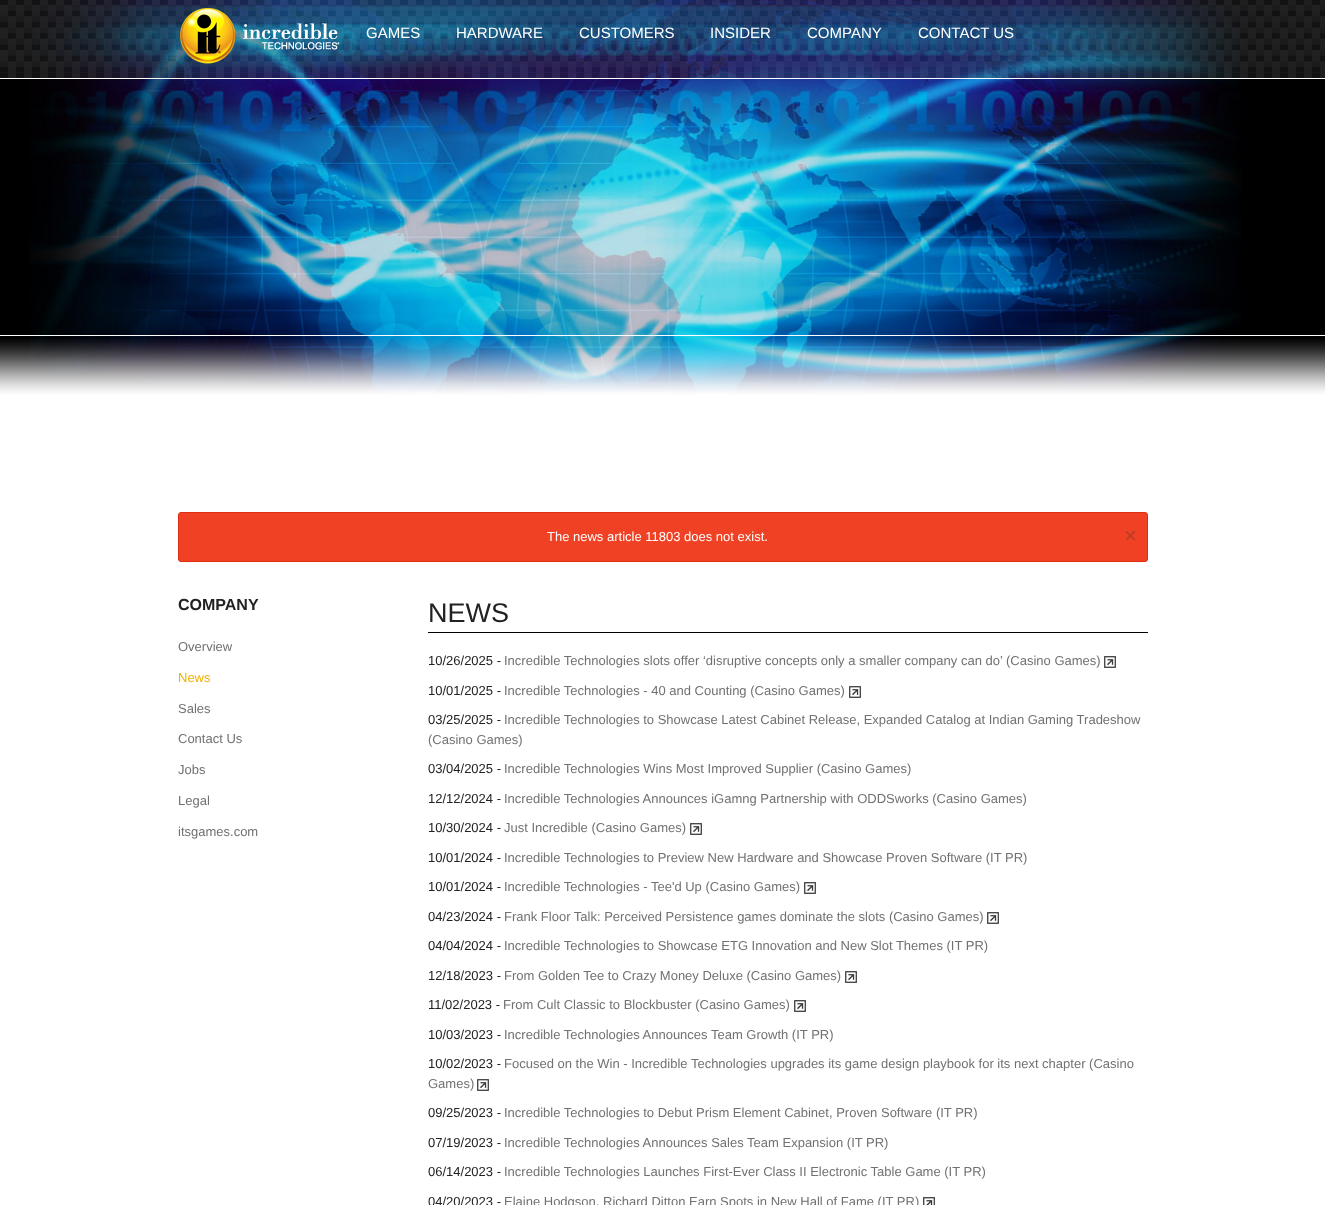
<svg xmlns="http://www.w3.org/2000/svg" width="1325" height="1205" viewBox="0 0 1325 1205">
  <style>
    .t1 { font: 15px Liberation Sans; fill: #fff; }
    .t2 { font: 13px Liberation Sans; fill: #fff; }
    .t3 { font: 22px Liberation Sans; fill: #b73d29; }
    .t4 { font: bold 16px Liberation Sans; fill: #222; }
    .t5 { font: 13px Liberation Sans; fill: #717171; }
    .t6 { font: 13px Liberation Sans; fill: #f2b103; }
    .t7 { font: 27px Liberation Sans; fill: #222; }
    .t8 { font: 13px Liberation Sans; fill: #222; }
  </style>
  <rect width="100%" height="100%" fill="#fff"/>
  <rect x="0" y="0" width="1325" height="400" fill="#ccc" filter="blur(2.5px)"/>
  <rect x="0" y="0" width="1325" height="395" fill="#000"/>
  <image x="29" y="0" width="1213" height="395" href="images/1.png"/>
  <image x="0" y="0" width="1325" height="78" href="images/2.png"/>
  <rect x="0" y="78" width="1325" height="1" fill="#fff"/>
  <image x="180" y="8" width="160" height="56" href="images/3.png"/>
  <text x="366" y="38" class="t1">GAMES</text>
  <text x="456" y="38" class="t1">HARDWARE</text>
  <text x="579" y="38" class="t1">CUSTOMERS</text>
  <text x="710" y="38" class="t1">INSIDER</text>
  <text x="807" y="38" class="t1">COMPANY</text>
  <text x="918" y="38" class="t1">CONTACT US</text>
  <image x="0" y="339" width="1325" height="65" href="images/4.png"/>
  <rect x="0" y="335" width="1325" height="1" fill="#fff"/>
  <rect x="178.5" y="512.5" width="969" height="49" rx="2.5" fill="#f04124" stroke="#de2d0f"/>
  <text x="547" y="541" class="t2">The news article 11803 does not exist.</text>
  <text x="1124" y="543" class="t3">×</text>
  <text x="178" y="610" class="t4">COMPANY</text>
  <text x="178" y="651" class="t5">Overview</text>
  <text x="178" y="682" class="t6">News</text>
  <text x="178" y="713" class="t5">Sales</text>
  <text x="178" y="743" class="t5">Contact Us</text>
  <text x="178" y="774" class="t5">Jobs</text>
  <text x="178" y="805" class="t5">Legal</text>
  <text x="178" y="836" class="t5">itsgames.com</text>
  <rect x="428" y="632" width="720" height="1" fill="#000"/>
  <text x="428" y="622" class="t7">NEWS</text>
  <text x="428" y="665" class="t8">10/26/2025 -</text>
  <text x="504" y="665" class="t5">Incredible Technologies slots offer ‘disruptive concepts only a smaller company can do’ (Casino Games)</text>
  <image x="1104" y="656" width="12" height="12" href="images/5.png"/>
  <text x="428" y="695" class="t8">10/01/2025 -</text>
  <text x="504" y="695" class="t5">Incredible Technologies - 40 and Counting (Casino Games)</text>
  <image x="849" y="686" width="12" height="12" href="images/5.png"/>
  <text x="428" y="724" class="t8">03/25/2025 -</text>
  <text x="504" y="724" class="t5">Incredible Technologies to Showcase Latest Cabinet Release, Expanded Catalog at Indian Gaming Tradeshow</text>
  <text x="428" y="744" class="t5">(Casino Games)</text>
  <text x="428" y="773" class="t8">03/04/2025 -</text>
  <text x="504" y="773" class="t5">Incredible Technologies Wins Most Improved Supplier (Casino Games)</text>
  <text x="428" y="803" class="t8">12/12/2024 -</text>
  <text x="504" y="803" class="t5">Incredible Technologies Announces iGamng Partnership with ODDSworks (Casino Games)</text>
  <text x="428" y="832" class="t8">10/30/2024 -</text>
  <text x="504" y="832" class="t5">Just Incredible (Casino Games)</text>
  <image x="690" y="823" width="12" height="12" href="images/5.png"/>
  <text x="428" y="862" class="t8">10/01/2024 -</text>
  <text x="504" y="862" class="t5">Incredible Technologies to Preview New Hardware and Showcase Proven Software (IT PR)</text>
  <text x="428" y="891" class="t8">10/01/2024 -</text>
  <text x="504" y="891" class="t5">Incredible Technologies - Tee'd Up (Casino Games)</text>
  <image x="804" y="882" width="12" height="12" href="images/5.png"/>
  <text x="428" y="921" class="t8">04/23/2024 -</text>
  <text x="504" y="921" class="t5">Frank Floor Talk: Perceived Persistence games dominate the slots (Casino Games)</text>
  <image x="987" y="912" width="12" height="12" href="images/5.png"/>
  <text x="428" y="950" class="t8">04/04/2024 -</text>
  <text x="504" y="950" class="t5">Incredible Technologies to Showcase ETG Innovation and New Slot Themes (IT PR)</text>
  <text x="428" y="980" class="t8">12/18/2023 -</text>
  <text x="504" y="980" class="t5">From Golden Tee to Crazy Money Deluxe (Casino Games)</text>
  <image x="845" y="971" width="12" height="12" href="images/5.png"/>
  <text x="428" y="1009" class="t8">11/02/2023 -</text>
  <text x="503" y="1009" class="t5">From Cult Classic to Blockbuster (Casino Games)</text>
  <image x="794" y="1000" width="12" height="12" href="images/5.png"/>
  <text x="428" y="1039" class="t8">10/03/2023 -</text>
  <text x="504" y="1039" class="t5">Incredible Technologies Announces Team Growth (IT PR)</text>
  <text x="428" y="1068" class="t8">10/02/2023 -</text>
  <text x="504" y="1068" class="t5">Focused on the Win - Incredible Technologies upgrades its game design playbook for its next chapter (Casino</text>
  <text x="428" y="1088" class="t5">Games)</text>
  <image x="477" y="1079" width="12" height="12" href="images/5.png"/>
  <text x="428" y="1117" class="t8">09/25/2023 -</text>
  <text x="504" y="1117" class="t5">Incredible Technologies to Debut Prism Element Cabinet, Proven Software (IT PR)</text>
  <text x="428" y="1147" class="t8">07/19/2023 -</text>
  <text x="504" y="1147" class="t5">Incredible Technologies Announces Sales Team Expansion (IT PR)</text>
  <text x="428" y="1176" class="t8">06/14/2023 -</text>
  <text x="504" y="1176" class="t5">Incredible Technologies Launches First-Ever Class II Electronic Table Game (IT PR)</text>
  <text x="428" y="1206" class="t8">04/20/2023 -</text>
  <text x="504" y="1206" class="t5">Elaine Hodgson, Richard Ditton Earn Spots in New Hall of Fame (IT PR)</text>
  <image x="923" y="1197" width="12" height="8" href="images/6.png"/>
</svg>
